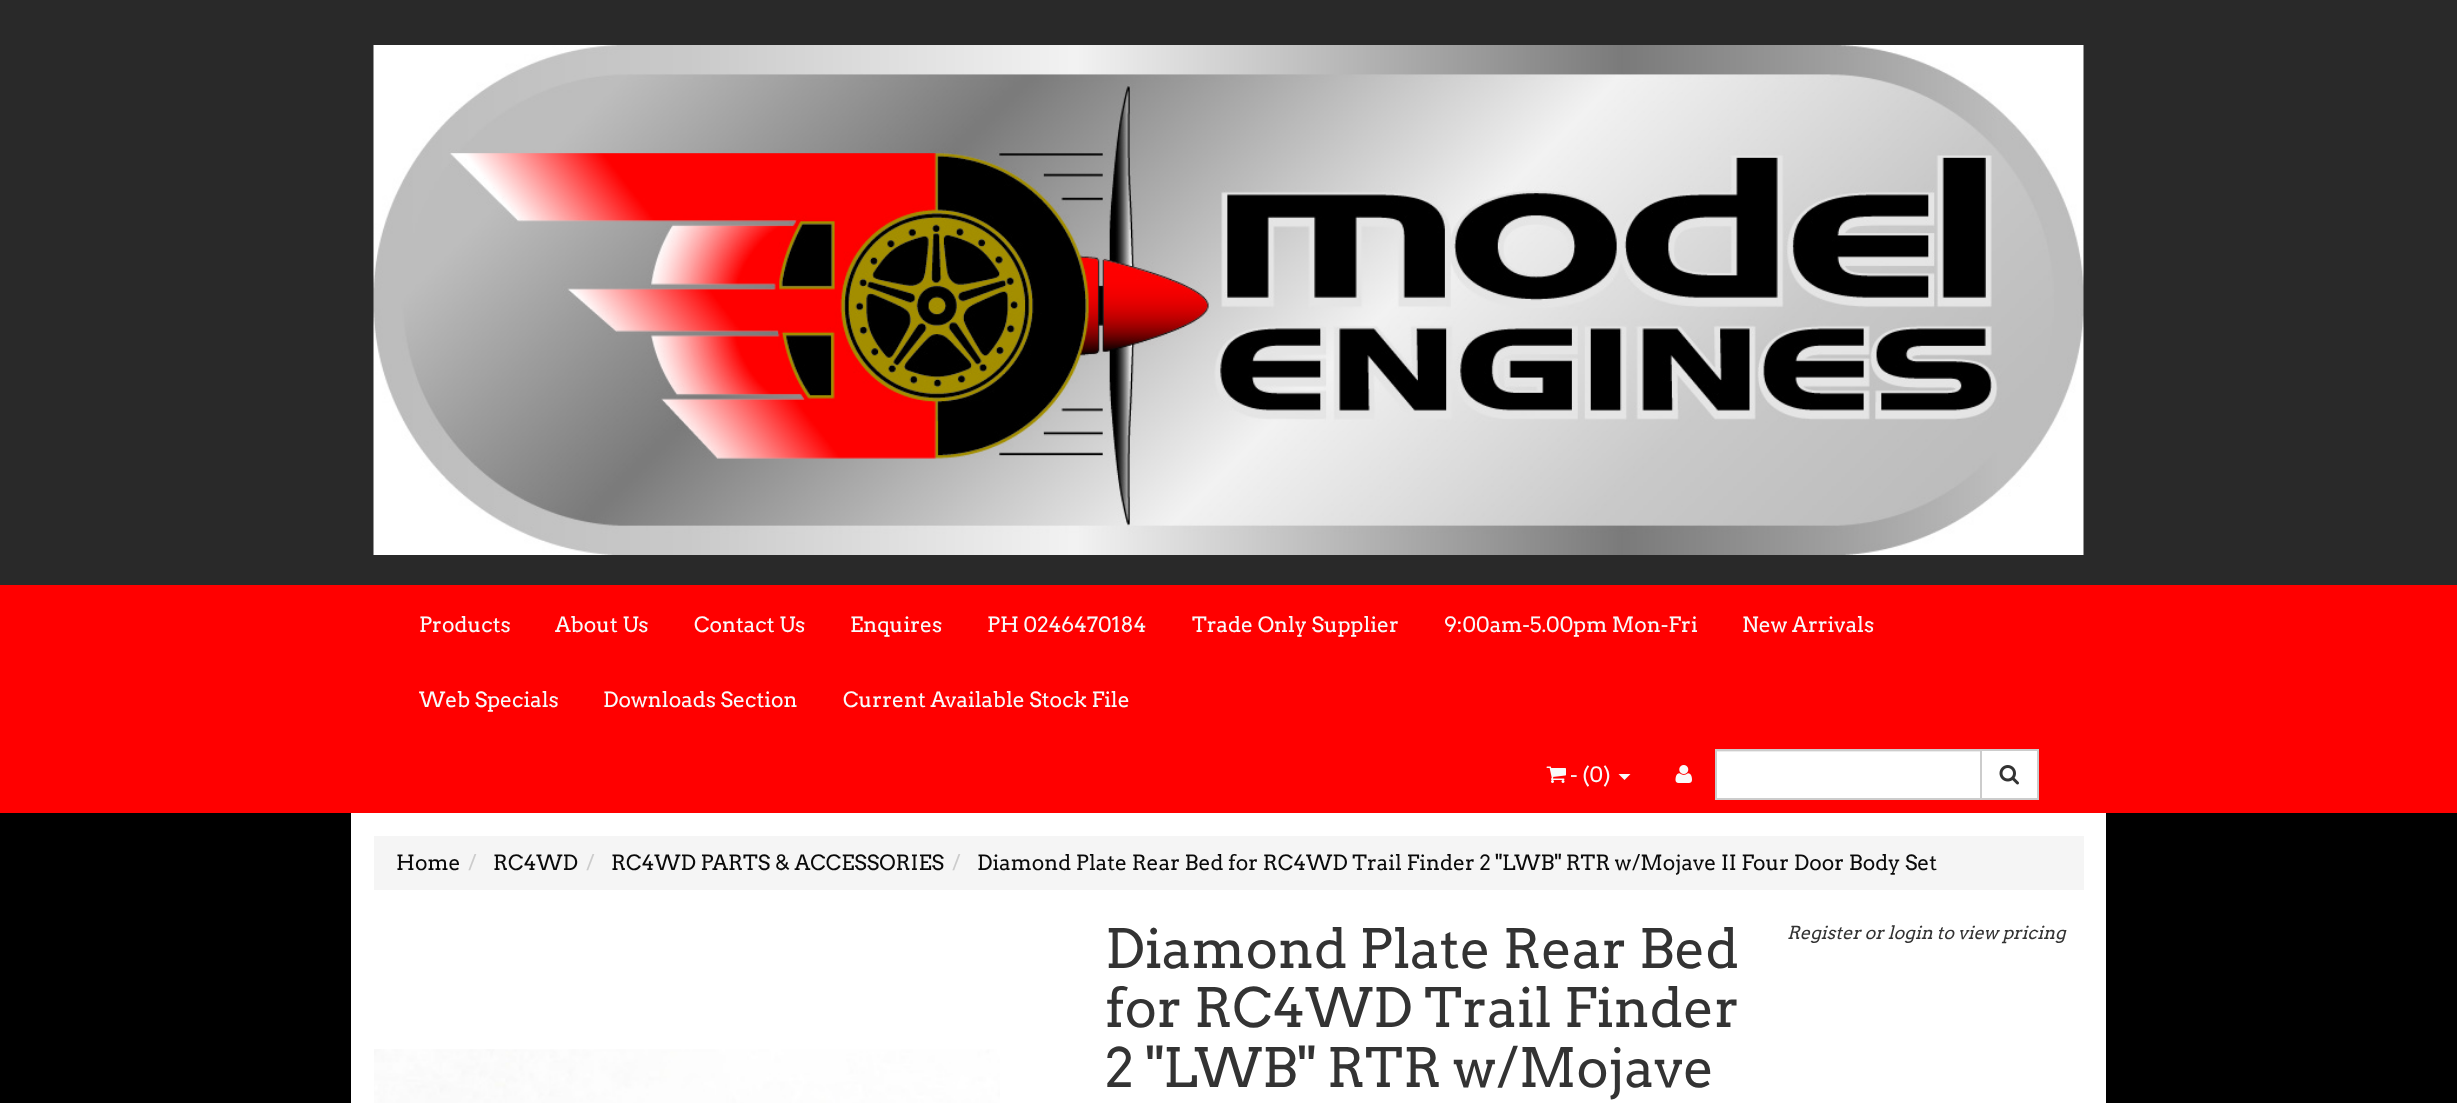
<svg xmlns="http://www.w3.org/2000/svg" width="2457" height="1103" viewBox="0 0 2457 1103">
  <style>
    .t1 { font: 21px Arvo; fill: #fafafa; }
    .t2 { font: 21px Arvo; fill: #0a0a0a; }
    .t3 { font: 21px Arvo; fill: #ccc; }
    .t4 { font: 54px Arvo; fill: #333; }
    .t5 { font: italic 18px Arvo; fill: #333; }
  </style>
  <rect width="100%" height="100%" fill="#000"/>
  <rect x="0" y="0" width="2457" height="585" fill="#292929"/>
  <image x="373" y="45" width="1711" height="510" href="images/1.png"/>
  <rect x="0" y="585" width="2457" height="228" fill="#f00"/>
  <text x="419" y="632" class="t1">Products</text>
  <text x="555" y="632" class="t1">About Us</text>
  <text x="694" y="632" class="t1">Contact Us</text>
  <text x="850" y="632" class="t1">Enquires</text>
  <text x="987" y="632" class="t1">PH 0246470184</text>
  <text x="1192" y="632" class="t1">Trade Only Supplier</text>
  <text x="1444" y="632" class="t1">9:00am-5.00pm Mon-Fri</text>
  <text x="1742" y="632" class="t1">New Arrivals</text>
  <text x="419" y="707" class="t1">Web Specials</text>
  <text x="603" y="707" class="t1">Downloads Section</text>
  <text x="843" y="707" class="t1">Current Available Stock File</text>
  <image x="1546" y="766" width="20" height="17" href="images/2.png"/>
  <text x="1570" y="782" class="t1">- (0)</text>
  <path d="M1618.5 774H1630.5L1624.5 780Z" fill="#fafafa"/>
  <image x="1675" y="765" width="17" height="18" href="images/3.png"/>
  <rect x="1717" y="752" width="263" height="46" fill="#fff"/>
  <rect x="1716" y="751" width="264" height="1" fill="#ececec"/>
  <rect x="1981" y="750" width="57" height="49" fill="#fff" stroke="#ccc" stroke-width="2"/>
  <rect x="1716" y="750" width="265" height="49" fill="none" stroke="#ccc" stroke-width="2"/>
  <image x="1999" y="765" width="20" height="20" href="images/4.png"/>
  <rect x="351" y="813" width="1755" height="290" fill="#fff"/>
  <rect x="374" y="836" width="1710" height="54" fill="#f5f5f5"/>
  <text x="396" y="870" class="t2">Home</text>
  <text x="468" y="870" class="t3">/</text>
  <text x="493" y="870" class="t2">RC4WD</text>
  <text x="586" y="870" class="t3">/</text>
  <text x="611" y="870" class="t2">RC4WD PARTS &amp; ACCESSORIES</text>
  <text x="952" y="870" class="t3">/</text>
  <text x="977" y="870" class="t2">Diamond Plate Rear Bed for RC4WD Trail Finder 2 "LWB" RTR w/Mojave II Four Door Body Set</text>
  <image x="374" y="1049" width="626" height="54" href="images/5.png"/>
  <text x="1105" y="968" class="t4">Diamond Plate Rear Bed</text>
  <text x="1105" y="1027" class="t4">for RC4WD Trail Finder</text>
  <text x="1105" y="1087" class="t4">2 "LWB" RTR w/Mojave</text>
  <text x="1787" y="939" class="t5">Register or login to view pricing</text>
</svg>
